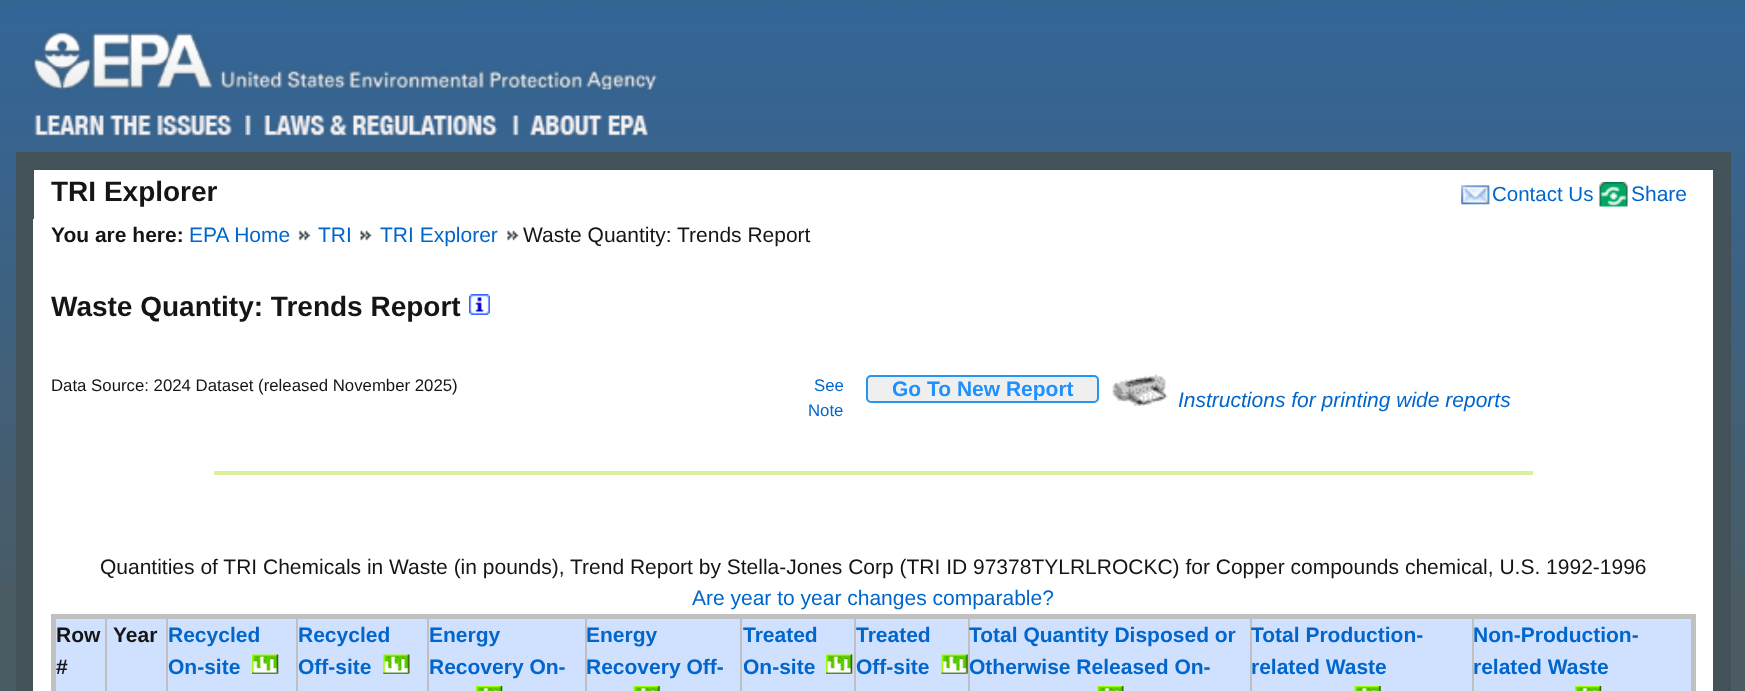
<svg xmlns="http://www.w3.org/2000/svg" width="1745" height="691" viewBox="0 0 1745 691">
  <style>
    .t1 { font: bold 28px Liberation Sans; fill: #151515; }
    .t2 { font: 20.5px Liberation Sans; fill: #06c; }
    .t3 { font: 21px Liberation Sans; fill: #06c; }
    .t4 { font: bold 21px Liberation Sans; fill: #151515; }
    .t5 { font: 21px Liberation Sans; fill: #151515; }
    .t6 { font: 16.8px Liberation Sans; fill: #151515; }
    .t7 { font: 16.8px Liberation Sans; fill: #06c; }
    .t8 { font: bold 21px Liberation Sans; fill: #1e90ff; }
    .t9 { font: italic 21px Liberation Sans; fill: #06c; }
    .t10 { font: bold 21px Liberation Sans; fill: #06c; }
  </style>
  <rect width="100%" height="100%" fill="#4a5b63"/>
  <image x="0" y="0" width="1745" height="581" href="images/1.png"/>
  <image x="31" y="29" width="626" height="63" href="images/2.png"/>
  <image x="34" y="115" width="198" height="21" href="images/3.png"/>
  <image x="245" y="115" width="253" height="21" href="images/4.png"/>
  <image x="512" y="115" width="136" height="21" href="images/5.png"/>
  <rect x="34" y="170" width="1679" height="49" fill="#fff"/>
  <rect x="25" y="161" width="1697" height="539" fill="none" stroke="#435258" stroke-width="18"/>
  <text x="51" y="201" class="t1">TRI Explorer</text>
  <image x="1461" y="185" width="29" height="20" href="images/6.png"/>
  <text x="1492" y="201" class="t2">Contact Us</text>
  <image x="1599" y="182" width="29" height="25" href="images/7.png"/>
  <text x="1631" y="201" class="t3">Share</text>
  <rect x="33" y="219" width="1680" height="472" fill="#fff"/>
  <text x="51" y="242" class="t4">You are here:</text>
  <text x="189" y="242" class="t3">EPA Home</text>
  <image x="298" y="230" width="13" height="11" href="images/8.png"/>
  <text x="318" y="242" class="t3">TRI</text>
  <image x="360" y="230" width="12" height="11" href="images/9.png"/>
  <text x="380" y="242" class="t3">TRI Explorer</text>
  <image x="507" y="230" width="12" height="11" href="images/10.png"/>
  <text x="523" y="242" class="t5">Waste Quantity:</text>
  <text x="677" y="242" class="t5">Trends Report</text>
  <text x="51" y="316" class="t1">Waste Quantity: Trends Report</text>
  <image x="469" y="294" width="21" height="21" href="images/11.png"/>
  <text x="51" y="391" class="t6">Data Source: 2024 Dataset (released November 2025)</text>
  <text x="814" y="391" class="t7">See</text>
  <text x="808" y="416" class="t7">Note</text>
  <rect x="867" y="376" width="231" height="26" rx="4" fill="#efefef" stroke="#2196f3" stroke-width="2"/>
  <text x="892" y="396" class="t8">Go To New Report</text>
  <image x="1112" y="374" width="56" height="32" href="images/12.png"/>
  <text x="1178" y="407" class="t9">Instructions for printing wide reports</text>
  <rect x="214" y="471" width="1319" height="4" fill="#d9f0a0"/>
  <text x="100" y="574" class="t5">Quantities of TRI Chemicals in Waste (in pounds), Trend Report by Stella-Jones Corp (TRI ID 97378TYLRLROCKC) for Copper compounds chemical, U.S. 1992-1996</text>
  <text x="692" y="605" class="t3">Are year to year changes comparable?</text>
  <rect x="56" y="619" width="1635" height="72" fill="#d0e0ff"/>
  <rect x="105" y="616" width="2" height="75" fill="#c0c0c0"/>
  <rect x="166" y="616" width="2" height="75" fill="#c0c0c0"/>
  <rect x="296" y="616" width="2" height="75" fill="#c0c0c0"/>
  <rect x="427" y="616" width="2" height="75" fill="#c0c0c0"/>
  <rect x="585" y="616" width="2" height="75" fill="#c0c0c0"/>
  <rect x="740" y="616" width="2" height="75" fill="#c0c0c0"/>
  <rect x="854" y="616" width="2" height="75" fill="#c0c0c0"/>
  <rect x="968" y="616" width="2" height="75" fill="#c0c0c0"/>
  <rect x="1250" y="616" width="2" height="75" fill="#c0c0c0"/>
  <rect x="1472" y="616" width="2" height="75" fill="#c0c0c0"/>
  <rect x="51" y="614" width="1645" height="5" fill="#c0c0c0"/>
  <rect x="1691" y="614" width="5" height="77" fill="#c0c0c0"/>
  <rect x="51" y="614" width="5" height="77" fill="#c0c0c0"/>
  <text x="56" y="642" class="t4">Row</text>
  <text x="56" y="674" class="t4">#</text>
  <text x="113" y="642" class="t4">Year</text>
  <text x="168" y="642" class="t10">Recycled</text>
  <text x="168" y="674" class="t10">On-site</text>
  <image x="252" y="654" width="27" height="20" href="images/13.png"/>
  <text x="298" y="642" class="t10">Recycled</text>
  <text x="298" y="674" class="t10">Off-site</text>
  <image x="383" y="654" width="27" height="20" href="images/14.png"/>
  <text x="429" y="642" class="t10">Energy</text>
  <text x="429" y="674" class="t10">Recovery On-</text>
  <image x="476" y="686" width="27" height="5" href="images/15.png"/>
  <text x="586" y="642" class="t10">Energy</text>
  <text x="586" y="674" class="t10">Recovery Off-</text>
  <image x="633" y="686" width="27" height="5" href="images/16.png"/>
  <text x="743" y="642" class="t10">Treated</text>
  <text x="743" y="674" class="t10">On-site</text>
  <image x="826" y="654" width="27" height="20" href="images/13.png"/>
  <text x="856" y="642" class="t10">Treated</text>
  <text x="856" y="674" class="t10">Off-site</text>
  <image x="941" y="654" width="27" height="20" href="images/17.png"/>
  <text x="969" y="642" class="t10">Total Quantity Disposed or</text>
  <text x="969" y="674" class="t10">Otherwise Released On-</text>
  <image x="1097" y="686" width="27" height="5" href="images/18.png"/>
  <text x="1251" y="642" class="t10">Total Production-</text>
  <text x="1251" y="674" class="t10">related Waste</text>
  <image x="1354" y="686" width="27" height="5" href="images/16.png"/>
  <text x="1473" y="642" class="t10">Non-Production-</text>
  <text x="1473" y="674" class="t10">related Waste</text>
  <image x="1575" y="686" width="27" height="5" href="images/15.png"/>
</svg>
